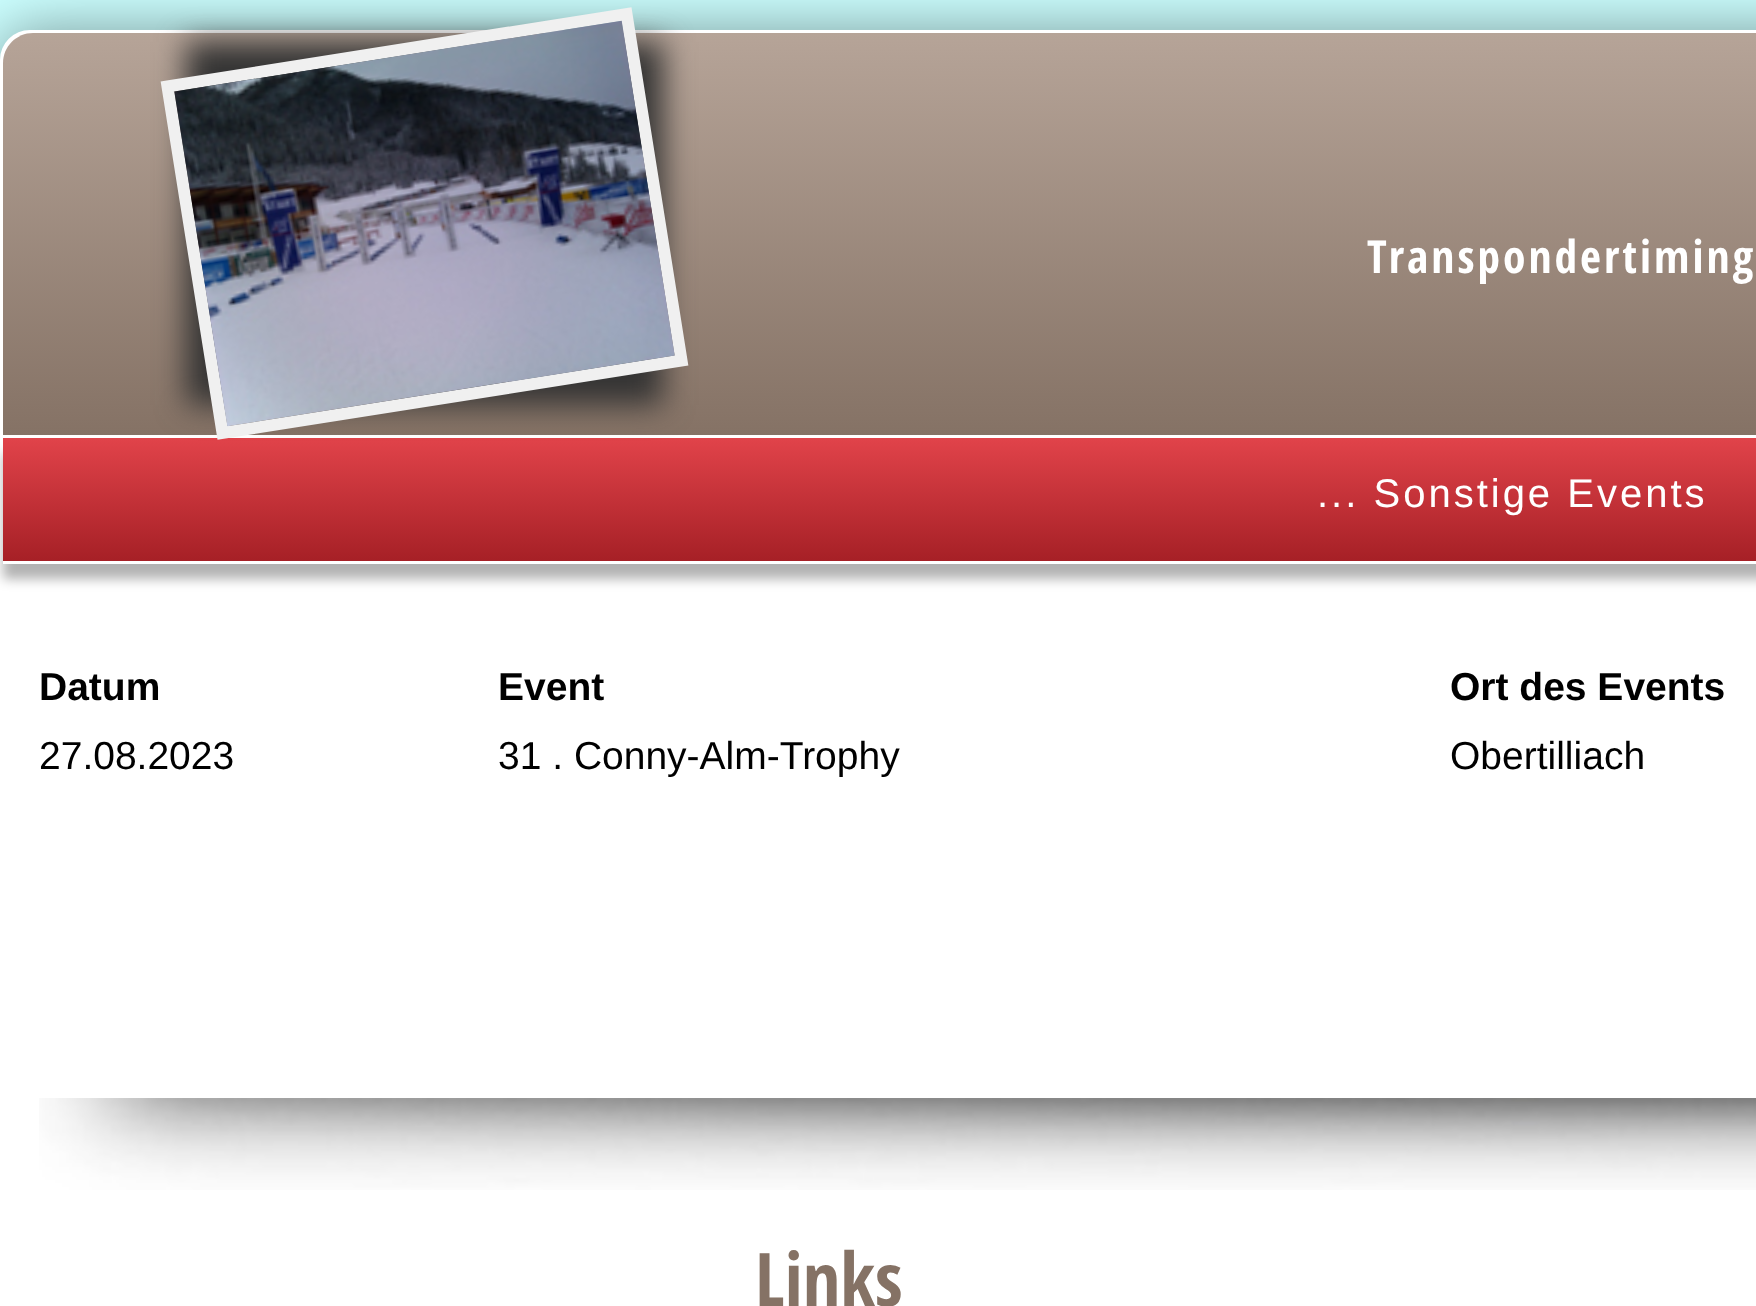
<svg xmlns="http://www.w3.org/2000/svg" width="1756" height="1306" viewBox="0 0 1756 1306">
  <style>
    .t1 { font: bold 45.5px Open Sans Condensed; letter-spacing: 3px; fill: #fff; }
    .t2 { font: 40px Liberation Sans; letter-spacing: 3px; fill: #fff; }
    .t3 { font: bold 39px Liberation Sans; fill: #000; }
    .t4 { font: 39px Liberation Sans; fill: #000; }
    .t5 { font: bold 74px Open Sans Condensed; fill: #857265; }
  </style>
  <defs>
    <linearGradient id="g1" gradientUnits="userSpaceOnUse" x1="1653" y1="33" x2="1653" y2="435"><stop offset="0" stop-color="#b6a498"/><stop offset="1" stop-color="#857265"/></linearGradient>
    <linearGradient id="g2" gradientUnits="userSpaceOnUse" x1="1653" y1="438" x2="1653" y2="561"><stop offset="0" stop-color="#e1434a"/><stop offset="1" stop-color="#a62026"/></linearGradient>
  </defs>
  <rect width="100%" height="100%" fill="#cff"/>
  <rect x="0" y="30" width="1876" height="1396" rx="30" fill="#00000066" filter="blur(30px)"/>
  <rect x="1.5" y="31.5" width="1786" height="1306" rx="28.5" fill="#fff" stroke="#fff" stroke-width="3"/>
  <path d="M33 33H1756C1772.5 33 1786 46.5 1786 63V435H3V63C3 46.5 16.5 33 33 33Z" fill="url(#g1)"/>
  <rect x="3" y="453" width="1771" height="126" fill="#0000004d" filter="blur(6px)"/>
  <rect x="3" y="438" width="1753" height="123" fill="url(#g2)"/>
  <rect x="186" y="42" width="477" height="363" fill="#333" filter="blur(15px)"/>
  <path d="M167.5 86.5L626.5 14L681.5 360.5L222.5 433Z" fill="none" stroke="#f0f0f0" stroke-width="12"/>
  <image x="174" y="20" width="501" height="407" href="images/1.png"/>
  <text x="1367" y="273" class="t1">Transpondertiming</text>
  <rect x="3" y="561" width="1753" height="3" fill="#fff"/>
  <text x="1317" y="507" class="t2">... Sonstige Events</text>
  <text x="39" y="700" class="t3">Datum</text>
  <text x="498" y="700" class="t3">Event</text>
  <text x="1450" y="700" class="t3">Ort des Events</text>
  <text x="39" y="769" class="t4">27.08.2023</text>
  <text x="498" y="769" class="t4">31 . Conny-Alm-Trophy</text>
  <text x="1450" y="769" class="t4">Obertilliach</text>
  <image x="39" y="1098" width="1717" height="92" href="images/2.png"/>
  <text x="755" y="1306" class="t5">Links</text>
</svg>
